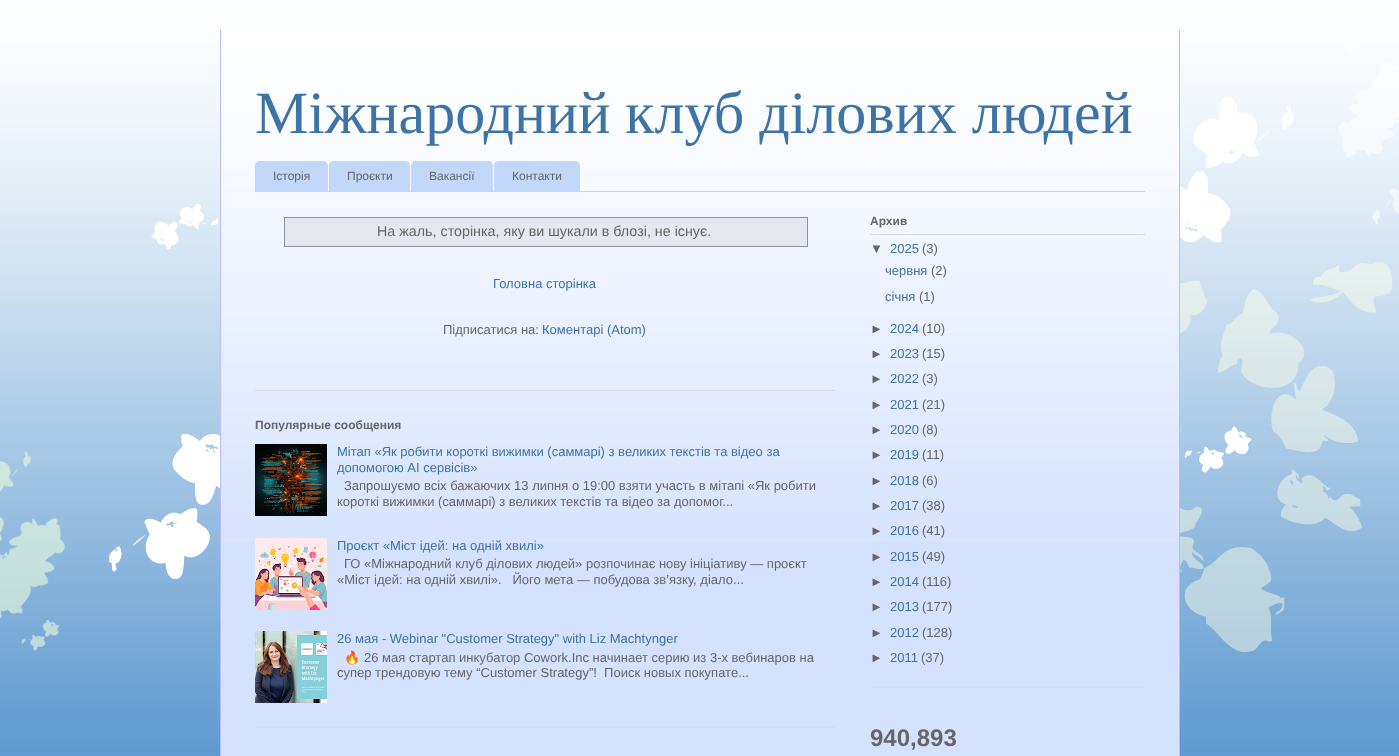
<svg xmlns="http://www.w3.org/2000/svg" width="1399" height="756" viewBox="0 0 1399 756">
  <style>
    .t1 { font: 60px Liberation Serif; fill: #3d74a5; }
    .t2 { font: 12px Liberation Sans; fill: #666; }
    .t3 { font: 14.3px Liberation Sans; fill: #666; }
    .t4 { font: 13px Liberation Sans; fill: #3d74a5; }
    .t5 { font: 13px Liberation Sans; fill: #666; }
    .t6 { font: bold 12px Liberation Sans; fill: #666; }
    .t7 { font: 13px Noto Color Emoji; fill: #666; }
    .t8 { font: bold 24px Liberation Sans; fill: #666; }
  </style>
  <rect width="100%" height="100%" fill="#3d85c6"/>
  <image x="0" y="0" width="1399" height="756" href="images/1.png"/>
  <rect x="221" y="37" width="958" height="719" fill="#d4e1ff"/>
  <image x="221" y="30" width="958" height="512" href="images/2.png"/>
  <rect x="1179" y="30" width="1" height="726" fill="#bbf"/>
  <rect x="220" y="30" width="1" height="726" fill="#bbf"/>
  <text x="255" y="133" class="t1">Міжнародний клуб ділових людей</text>
  <rect x="255" y="191" width="890" height="1" fill="#c2d8fa"/>
  <path d="M260 161H323C326 161 328 163 328 166V191H255V166C255 163 257 161 260 161Z" fill="#c2d8fa"/>
  <text x="273" y="180" class="t2">Історія</text>
  <path d="M334 161H405C408 161 410 163 410 166V191H329V166C329 163 331 161 334 161Z" fill="#c2d8fa"/>
  <text x="347" y="180" class="t2">Проєкти</text>
  <path d="M416 161H488C491 161 493 163 493 166V191H411V166C411 163 413 161 416 161Z" fill="#c2d8fa"/>
  <text x="429" y="180" class="t2">Вакансії</text>
  <path d="M499 161H575C578 161 580 163 580 166V191H494V166C494 163 496 161 499 161Z" fill="#c2d8fa"/>
  <text x="512" y="180" class="t2">Контакти</text>
  <rect x="284.5" y="217.5" width="523" height="29" fill="none" stroke="#919399"/>
  <rect x="285" y="218" width="522" height="28" fill="#e6e8ef"/>
  <text x="377" y="236" class="t3">На жаль, сторінка, яку ви шукали в блозі, не існує.</text>
  <text x="493" y="288" class="t4">Головна сторінка</text>
  <text x="443" y="334" class="t5">Підписатися на:</text>
  <text x="542" y="334" class="t4">Коментарі (Atom)</text>
  <rect x="255" y="390" width="580" height="1" fill="#dbdbdb"/>
  <rect x="255" y="727" width="580" height="1" fill="#dbdbdb"/>
  <text x="255" y="429" class="t6">Популярные сообщения</text>
  <image x="255" y="444" width="72" height="72" href="images/3.png"/>
  <text x="337" y="456" class="t4">Мітап «Як робити короткі вижимки (саммарі) з великих текстів та відео за</text>
  <text x="337" y="472" class="t4">допомогою АІ сервісів»</text>
  <text x="344" y="490" class="t5">Запрошуємо всіх бажаючих 13 липня о 19:00 взяти участь в мітапі «Як робити</text>
  <text x="337" y="506" class="t5">короткі вижимки (саммарі) з великих текстів та відео за допомог...</text>
  <image x="255" y="538" width="72" height="72" href="images/4.png"/>
  <text x="337" y="550" class="t4">Проєкт «Міст ідей: на одній хвилі»</text>
  <text x="344" y="568" class="t5">ГО «Міжнародний клуб ділових людей» розпочинає нову ініціативу — проєкт</text>
  <text x="337" y="584" class="t5" xml:space="preserve">«Міст ідей: на одній хвилі».   Його мета — побудова зв’язку, діало...</text>
  <image x="255" y="631" width="72" height="72" href="images/5.png"/>
  <text x="337" y="643" class="t4">26 мая - Webinar "Customer Strategy" with Liz Machtynger</text>
  <text x="344" y="662" class="t7">🔥</text>
  <text x="364" y="662" class="t5">26 мая стартап инкубатор Cowork.Inc начинает серию из 3-х вебинаров на</text>
  <text x="337" y="677" class="t5" xml:space="preserve">супер трендовую тему “Сustomer Strategy”!  Поиск новых покупате...</text>
  <rect x="870" y="687" width="275" height="1" fill="#dbdbdb"/>
  <rect x="870" y="234" width="275" height="1" fill="#dbdbdb"/>
  <text x="870" y="225" class="t6">Архив</text>
  <text x="870" y="253" class="t5">▼</text>
  <text x="890" y="253" class="t4">2025</text>
  <text x="922" y="253" class="t5">(3)</text>
  <text x="885" y="275" class="t4">червня</text>
  <text x="931" y="275" class="t5">(2)</text>
  <text x="885" y="301" class="t4">січня</text>
  <text x="919" y="301" class="t5">(1)</text>
  <text x="870" y="333" class="t5">►</text>
  <text x="890" y="333" class="t4">2024</text>
  <text x="922" y="333" class="t5">(10)</text>
  <text x="870" y="358" class="t5">►</text>
  <text x="890" y="358" class="t4">2023</text>
  <text x="922" y="358" class="t5">(15)</text>
  <text x="870" y="383" class="t5">►</text>
  <text x="890" y="383" class="t4">2022</text>
  <text x="922" y="383" class="t5">(3)</text>
  <text x="870" y="409" class="t5">►</text>
  <text x="890" y="409" class="t4">2021</text>
  <text x="922" y="409" class="t5">(21)</text>
  <text x="870" y="434" class="t5">►</text>
  <text x="890" y="434" class="t4">2020</text>
  <text x="922" y="434" class="t5">(8)</text>
  <text x="870" y="459" class="t5">►</text>
  <text x="890" y="459" class="t4">2019</text>
  <text x="922" y="459" class="t5">(11)</text>
  <text x="870" y="485" class="t5">►</text>
  <text x="890" y="485" class="t4">2018</text>
  <text x="922" y="485" class="t5">(6)</text>
  <text x="870" y="510" class="t5">►</text>
  <text x="890" y="510" class="t4">2017</text>
  <text x="922" y="510" class="t5">(38)</text>
  <text x="870" y="535" class="t5">►</text>
  <text x="890" y="535" class="t4">2016</text>
  <text x="922" y="535" class="t5">(41)</text>
  <text x="870" y="561" class="t5">►</text>
  <text x="890" y="561" class="t4">2015</text>
  <text x="922" y="561" class="t5">(49)</text>
  <text x="870" y="586" class="t5">►</text>
  <text x="890" y="586" class="t4">2014</text>
  <text x="922" y="586" class="t5">(116)</text>
  <text x="870" y="611" class="t5">►</text>
  <text x="890" y="611" class="t4">2013</text>
  <text x="922" y="611" class="t5">(177)</text>
  <text x="870" y="637" class="t5">►</text>
  <text x="890" y="637" class="t4">2012</text>
  <text x="922" y="637" class="t5">(128)</text>
  <text x="870" y="662" class="t5">►</text>
  <text x="890" y="662" class="t4">2011</text>
  <text x="921" y="662" class="t5">(37)</text>
  <text x="870" y="746" class="t8">940,893</text>
</svg>
